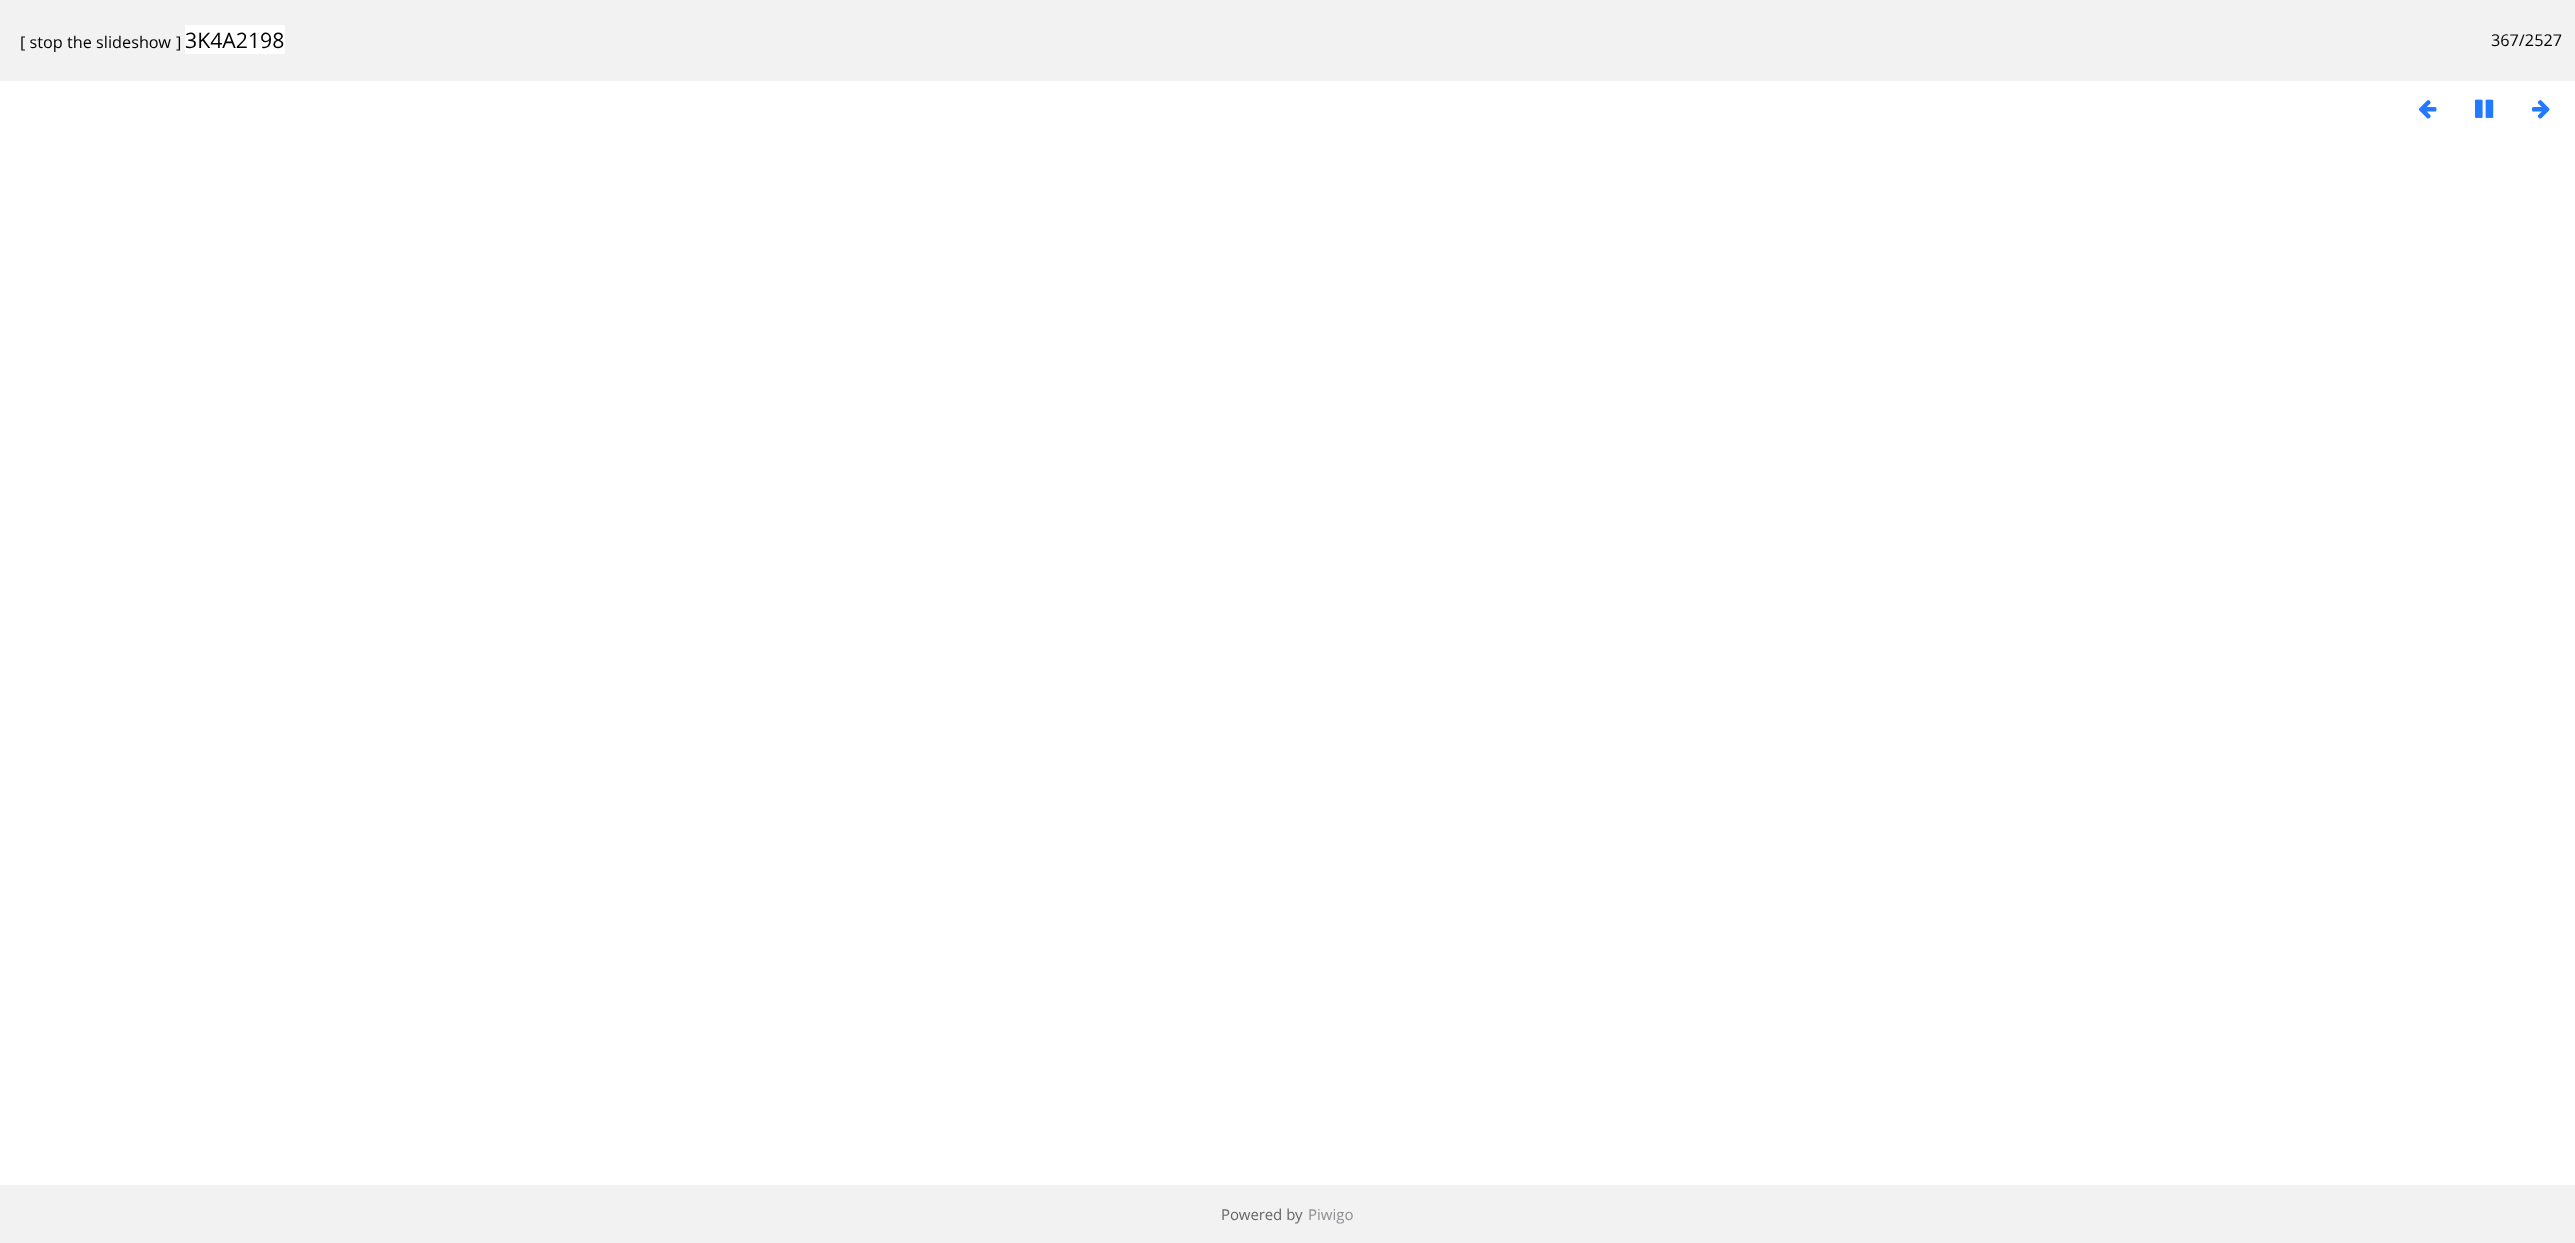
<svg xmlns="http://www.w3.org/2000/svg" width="2575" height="1243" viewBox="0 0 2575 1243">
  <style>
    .t1 { font: 16.25px Open Sans; fill: #000; }
    .t2 { font: 21.25px Open Sans; fill: #000; }
    .t3 { font: 21.25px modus; fill: #2379ff; }
    .t4 { font: 15px Open Sans; fill: #666; }
    .t5 { font: 15px Open Sans; fill: #8e8e93; }
  </style>
  <rect width="100%" height="100%" fill="#fff"/>
  <rect x="0" y="0" width="2575" height="81" fill="#f2f2f2"/>
  <text x="20" y="48" class="t1">[ stop the slideshow</text>
  <text x="176" y="48" class="t1">]</text>
  <rect x="185" y="25" width="100" height="29" fill="#fff"/>
  <text x="185" y="48" class="t2">3K4A2198</text>
  <text x="2491" y="46" class="t1">367/2527</text>
  <text x="2419" y="116" class="t3">←</text>
  <image x="2475" y="99" width="19" height="19" href="images/1.png"/>
  <text x="2532" y="116" class="t3">→</text>
  <rect x="0" y="1185" width="2575" height="58" fill="#f2f2f2"/>
  <text x="1221" y="1220" class="t4">Powered by</text>
  <text x="1308" y="1220" class="t5">Piwigo</text>
</svg>
